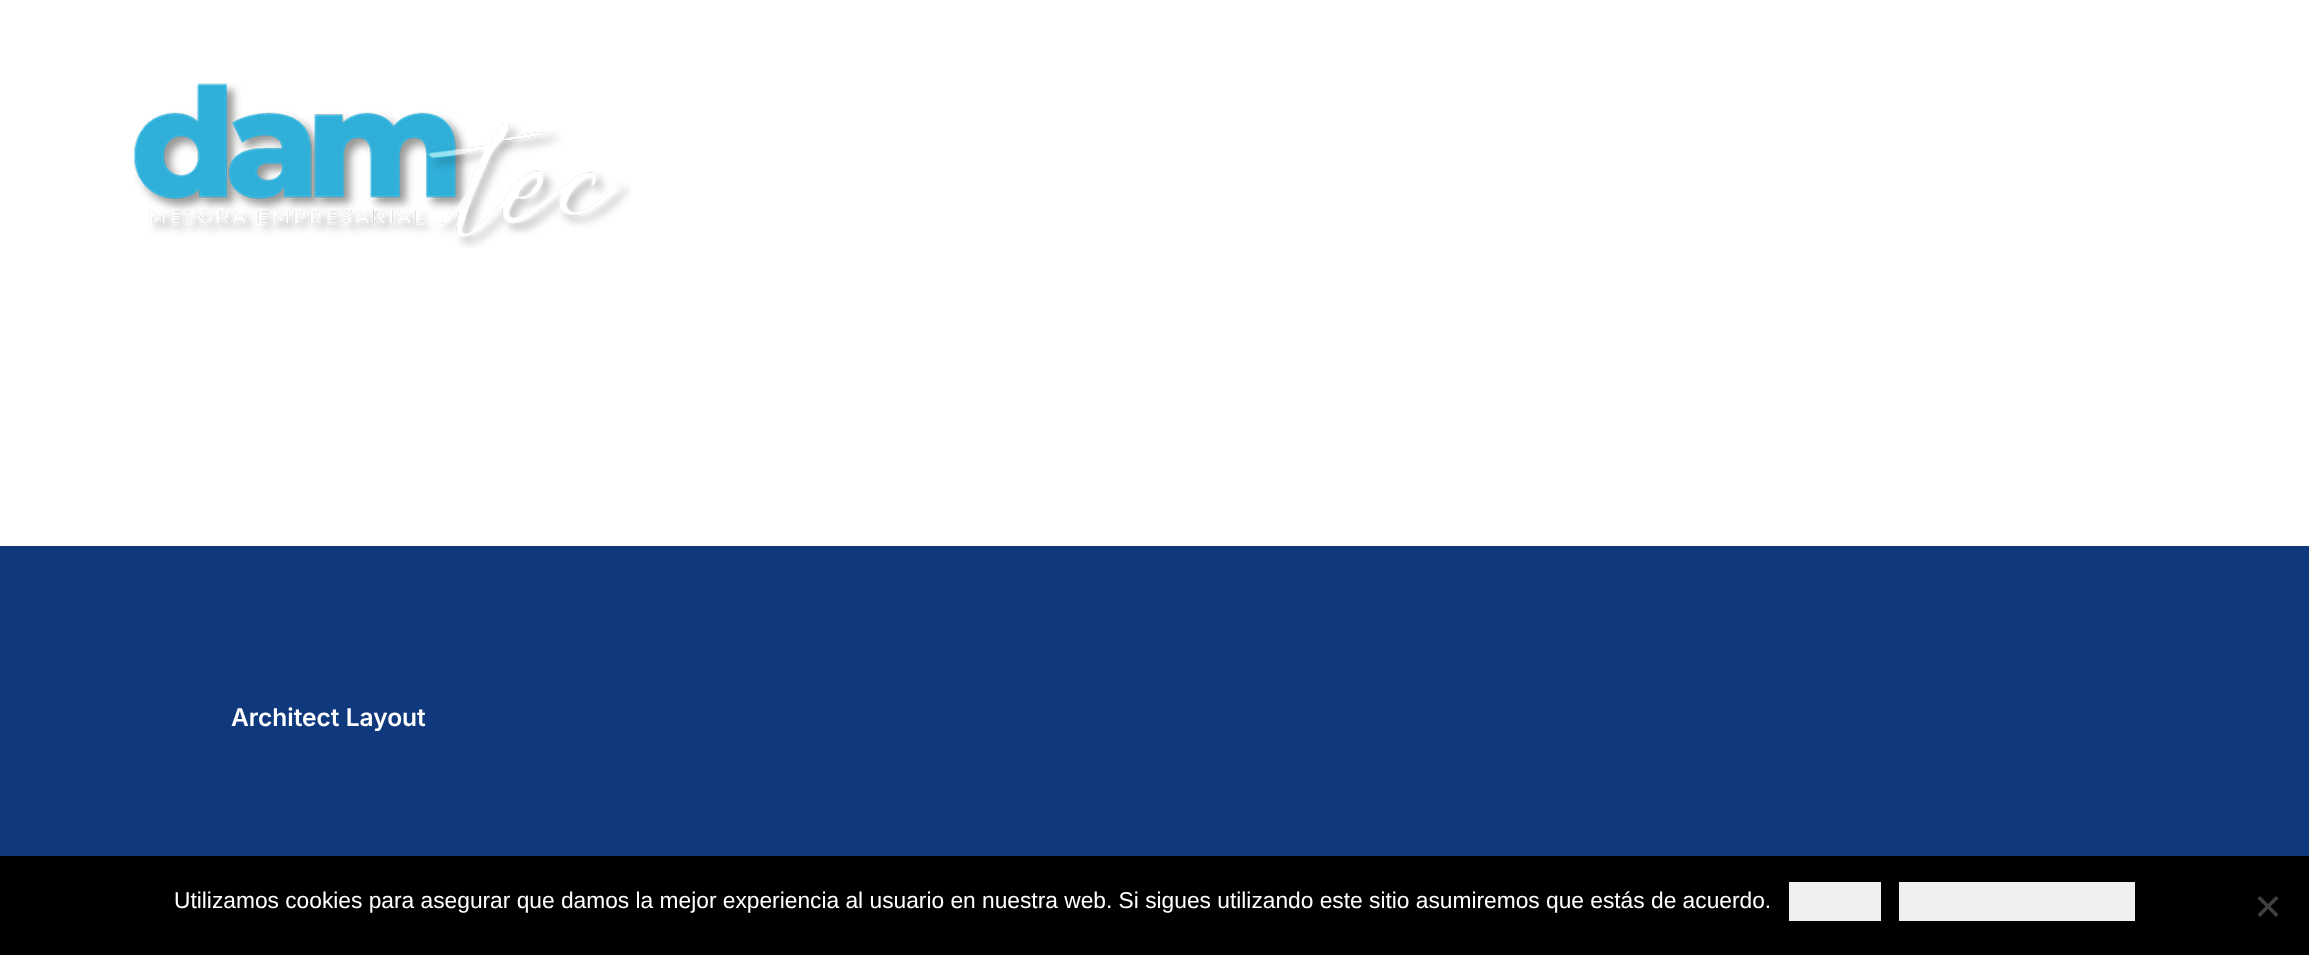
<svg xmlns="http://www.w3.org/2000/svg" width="2309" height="955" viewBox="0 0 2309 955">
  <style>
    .t1 { font: 600 24.5px Inter; fill: #fff; }
    .t2 { font: 22.75px Liberation Sans; fill: #fff; }
  </style>
  <rect width="100%" height="100%" fill="#0f397c"/>
  <rect x="0" y="0" width="2309" height="546" fill="#fff"/>
  <image x="134" y="83" width="497" height="165" href="images/1.png"/>
  <text x="231" y="726" class="t1">Architect Layout</text>
  <rect x="0" y="856" width="2309" height="99" fill="#000"/>
  <text x="174" y="908" class="t2">Utilizamos cookies para asegurar que damos la mejor experiencia al usuario en nuestra web. Si sigues utilizando este sitio asumiremos que estás de acuerdo.</text>
  <rect x="1789" y="882" width="92" height="39" fill="#efefef"/>
  <rect x="1899" y="882" width="236" height="39" fill="#efefef"/>
  <path d="M2276 896L2278.5 898.5L2260 917L2257.5 914.5Z" fill="#404040"/>
  <path d="M2257.5 898.5L2260 896L2278.5 914.5L2276 917Z" fill="#404040"/>
</svg>
